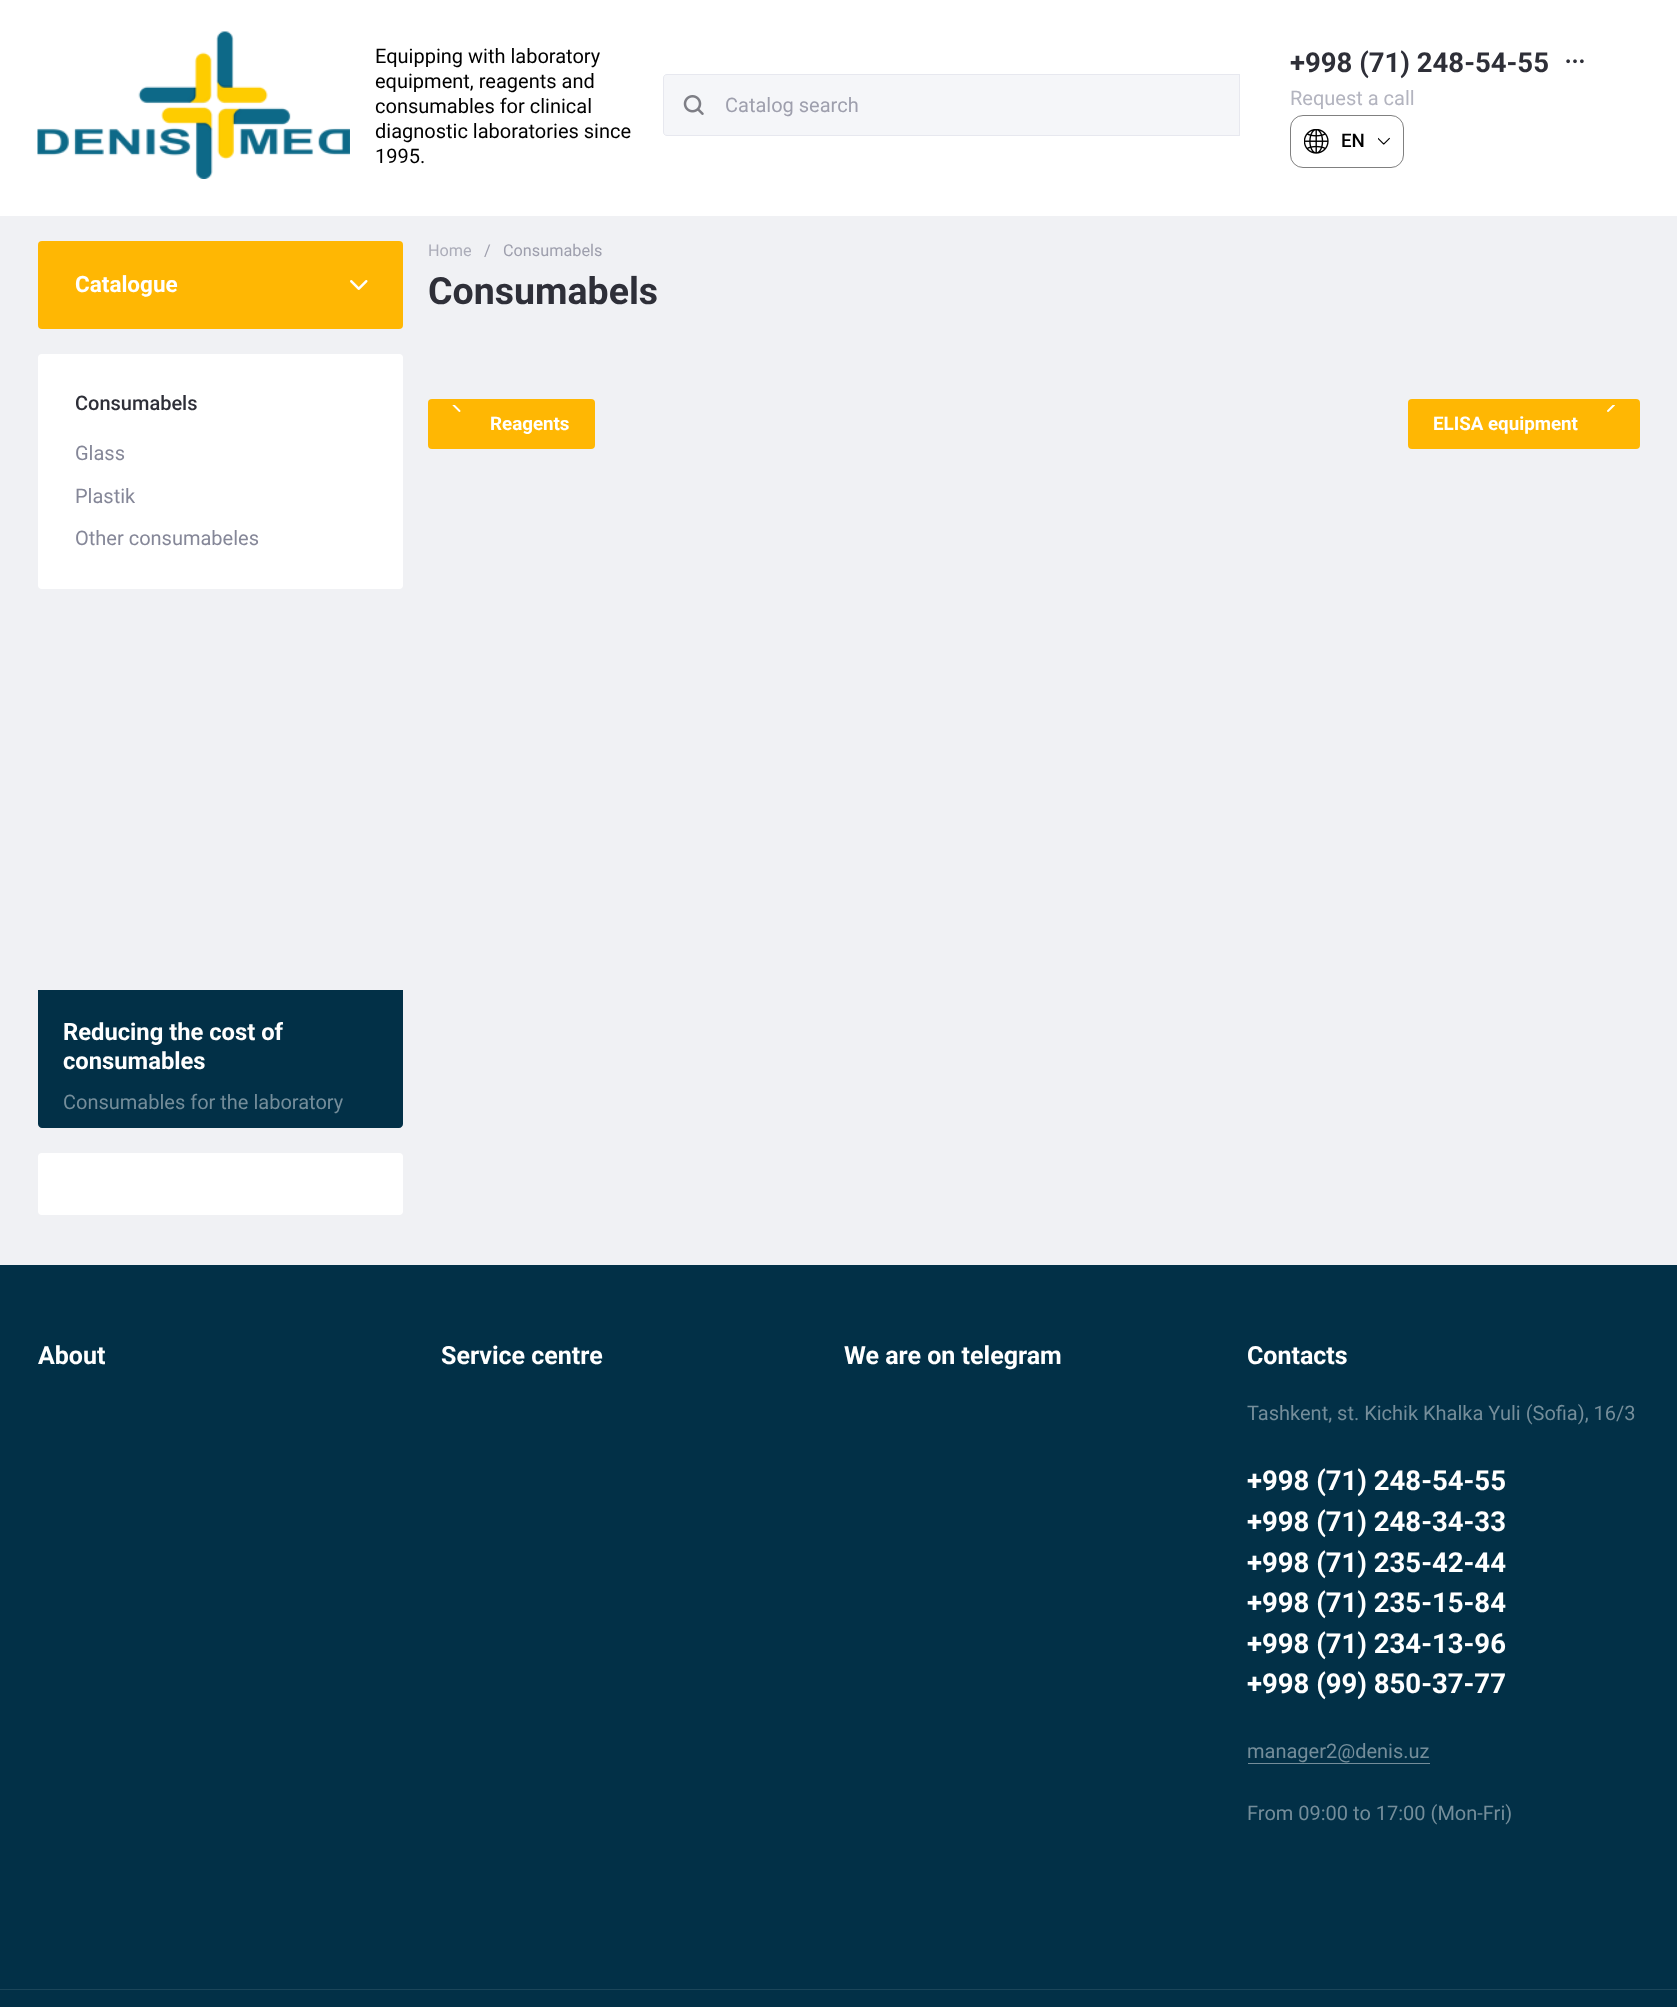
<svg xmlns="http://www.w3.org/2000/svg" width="1677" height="2007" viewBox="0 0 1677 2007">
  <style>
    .t1 { font: 20px Roboto; fill: #000; }
    .t2 { font: 20px Roboto; fill: #9e9fad; }
    .t3 { font: bold 27.5px Roboto; fill: #2e2f38; }
    .t4 { font: 20px Roboto; fill: #b3b4bf; }
    .t5 { font: 500 18.75px Roboto; fill: #000; }
    .t6 { font: bold 22.5px Roboto; fill: #fff; }
    .t7 { font: 500 20px Roboto; fill: #2e2f38; }
    .t8 { font: 20px Roboto; fill: #858798; }
    .t9 { font: bold 23.75px Roboto; fill: #fff; }
    .t10 { font: 20px Roboto; fill: #748d9a; }
    .t11 { font: 16.25px Roboto; fill: #acadb9; }
    .t12 { font: 16.25px Roboto; fill: #9e9fad; }
    .t13 { font: bold 37.5px Roboto; fill: #2e2f38; }
    .t14 { font: bold 18.75px Roboto; fill: #fff; }
    .t15 { font: bold 25px Roboto; fill: #fff; }
    .t16 { font: bold 27.5px Roboto; fill: #fff; }
  </style>
  <rect width="100%" height="100%" fill="#f0f1f4"/>
  <rect x="0" y="0" width="1677" height="216" fill="#fff"/>
  <image x="37" y="31" width="313" height="148" href="images/1.png"/>
  <text x="375" y="63" class="t1">Equipping with laboratory</text>
  <text x="375" y="88" class="t1">equipment, reagents and</text>
  <text x="375" y="113" class="t1">consumables for clinical</text>
  <text x="375" y="138" class="t1">diagnostic laboratories since</text>
  <text x="375" y="163" class="t1">1995.</text>
  <path d="M667 74H1240V136H667C665 136 663 134 663 132V78C663 76 665 74 667 74Z" fill="#f5f6f9"/>
  <path d="M667 74.5H1239.5V135.5H667C665 135.5 663.5 134 663.5 132V78C663.5 76 665 74.5 667 74.5Z" fill="none" stroke="#b1b2c733"/>
  <image x="683" y="95" width="21" height="20" href="images/2.png"/>
  <text x="725" y="112" class="t2">Catalog search</text>
  <text x="1290" y="72" class="t3">+998 (71) 248-54-55</text>
  <image x="1566" y="59" width="18" height="5" href="images/3.png"/>
  <text x="1290" y="105" class="t4">Request a call</text>
  <rect x="1290.5" y="115.5" width="113" height="52" rx="12.5" fill="none" stroke="#808080"/>
  <image x="1304" y="129" width="25" height="25" href="images/4.png"/>
  <text x="1341" y="147" class="t5">EN</text>
  <image x="1378" y="137" width="12" height="8" href="images/5.png"/>
  <rect x="38" y="241" width="365" height="88" rx="4" fill="#ffb703"/>
  <text x="75" y="292" class="t6">Catalogue</text>
  <image x="350" y="280" width="18" height="10" href="images/6.png"/>
  <rect x="38" y="354" width="365" height="235" rx="4" fill="#fff"/>
  <text x="75" y="410" class="t7">Consumabels</text>
  <text x="75" y="460" class="t8">Glass</text>
  <text x="75" y="503" class="t8">Plastik</text>
  <text x="75" y="545" class="t8">Other consumabeles</text>
  <path d="M38 990H403V1124C403 1126 401 1128 399 1128H42C40 1128 38 1126 38 1124Z" fill="#023047"/>
  <text x="63" y="1040" class="t9">Reducing the cost of</text>
  <text x="63" y="1069" class="t9">consumables</text>
  <text x="63" y="1109" class="t10">Consumables for the laboratory</text>
  <rect x="38" y="1153" width="365" height="62" rx="4" fill="#fff"/>
  <text x="428" y="256" class="t11">Home</text>
  <text x="484" y="256" class="t12">/</text>
  <text x="503" y="256" class="t12">Consumabels</text>
  <text x="428" y="304" class="t13">Consumabels</text>
  <rect x="428" y="399" width="167" height="50" rx="4" fill="#ffb703"/>
  <image x="452" y="405" width="9" height="7" href="images/7.png"/>
  <text x="490" y="430" class="t14">Reagents</text>
  <rect x="1408" y="399" width="232" height="50" rx="4" fill="#ffb703"/>
  <image x="1607" y="405" width="8" height="7" href="images/8.png"/>
  <text x="1433" y="430" class="t14">ELISA equipment</text>
  <rect x="0" y="1265" width="1677" height="742" fill="#023047"/>
  <text x="38" y="1364" class="t15">About</text>
  <text x="441" y="1364" class="t15">Service centre</text>
  <text x="844" y="1364" class="t15">We are on telegram</text>
  <text x="1247" y="1364" class="t15">Contacts</text>
  <text x="1247" y="1420" class="t10">Tashkent, st. Kichik Khalka Yuli (Sofia), 16/3</text>
  <text x="1247" y="1490" class="t16">+998 (71) 248-54-55</text>
  <text x="1247" y="1531" class="t16">+998 (71) 248-34-33</text>
  <text x="1247" y="1572" class="t16">+998 (71) 235-42-44</text>
  <text x="1247" y="1612" class="t16">+998 (71) 235-15-84</text>
  <text x="1247" y="1653" class="t16">+998 (71) 234-13-96</text>
  <text x="1247" y="1693" class="t16">+998 (99) 850-37-77</text>
  <text x="1247" y="1758" class="t10">manager2@denis.uz</text>
  <rect x="1248" y="1763" width="182" height="1" fill="#748d9a"/>
  <text x="1247" y="1820" class="t10">From 09:00 to 17:00 (Mon-Fri)</text>
  <rect x="0" y="1989" width="1677" height="1" fill="#1b4559"/>
</svg>
